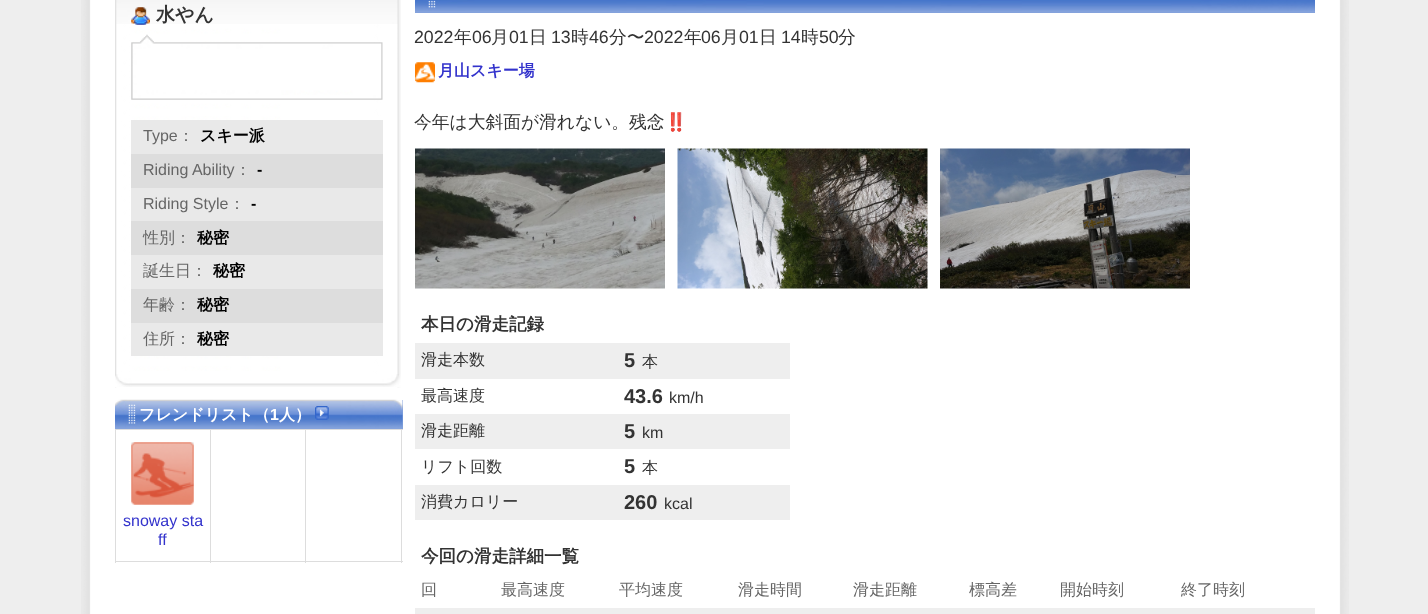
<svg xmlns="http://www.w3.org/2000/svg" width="1428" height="614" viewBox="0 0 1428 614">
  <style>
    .t1 { font: bold 19px WenQuanYi Zen Hei; fill: #333; }
    .t2 { font: 16px Liberation Sans; fill: #666; }
    .t3 { font: 500 16px WenQuanYi Zen Hei; fill: #666; }
    .t4 { font: bold 16px WenQuanYi Zen Hei; fill: #000; }
    .t5 { font: bold 16px Liberation Sans; fill: #000; }
    .t6 { font: bold 16px WenQuanYi Zen Hei; fill: #fff; }
    .t7 { font: bold 16px Liberation Sans; fill: #fff; }
    .t8 { font: 16px Liberation Sans; fill: #33c; }
    .t9 { font: 17.75px Liberation Sans; fill: #333; }
    .t10 { font: 500 17.75px WenQuanYi Zen Hei; fill: #333; }
    .t11 { font: bold 16px WenQuanYi Zen Hei; fill: #33c; }
    .t12 { font: 17.75px Noto Color Emoji; fill: #333; }
    .t13 { font: bold 17.5px WenQuanYi Zen Hei; fill: #333; }
    .t14 { font: 500 16px WenQuanYi Zen Hei; fill: #333; }
    .t15 { font: bold 20px Liberation Sans; fill: #333; }
    .t16 { font: 16px Liberation Sans; fill: #333; }
  </style>
  <rect width="100%" height="100%" fill="#eee"/>
  <image x="81" y="0" width="1268" height="614" href="images/1.png"/>
  <image x="115" y="0" width="286" height="388" href="images/2.png"/>
  <image x="116" y="0" width="282" height="24" href="images/3.png"/>
  <image x="115" y="374" width="286" height="13" href="images/4.png"/>
  <image x="131" y="7" width="19" height="18" href="images/5.png"/>
  <text x="156" y="21" class="t1">水やん</text>
  <image x="131" y="34" width="252" height="66" href="images/6.png"/>
  <rect x="131" y="120" width="252" height="34" fill="#e9e9e9"/>
  <text x="143" y="141" class="t2">Type</text>
  <text x="178" y="141" class="t3">：</text>
  <text x="200" y="141" class="t4">スキー派</text>
  <rect x="131" y="154" width="252" height="34" fill="#ddd"/>
  <text x="143" y="175" class="t2">Riding Ability</text>
  <text x="235" y="175" class="t3">：</text>
  <text x="257" y="175" class="t5">-</text>
  <rect x="131" y="188" width="252" height="33" fill="#e9e9e9"/>
  <text x="143" y="209" class="t2">Riding Style</text>
  <text x="229" y="209" class="t3">：</text>
  <text x="251" y="209" class="t5">-</text>
  <rect x="131" y="221" width="252" height="34" fill="#ddd"/>
  <text x="143" y="243" class="t3">性別：</text>
  <text x="197" y="243" class="t4">秘密</text>
  <rect x="131" y="255" width="252" height="34" fill="#e9e9e9"/>
  <text x="143" y="276" class="t3">誕生日：</text>
  <text x="213" y="276" class="t4">秘密</text>
  <rect x="131" y="289" width="252" height="34" fill="#ddd"/>
  <text x="143" y="310" class="t3">年齢：</text>
  <text x="197" y="310" class="t4">秘密</text>
  <rect x="131" y="323" width="252" height="33" fill="#e9e9e9"/>
  <text x="143" y="344" class="t3">住所：</text>
  <text x="197" y="344" class="t4">秘密</text>
  <rect x="115" y="400" width="288" height="29" fill="#84a2dc"/>
  <image x="115" y="399" width="288" height="29" href="images/7.png"/>
  <text x="139" y="420" class="t6">フレンドリスト（</text>
  <text x="270" y="420" class="t7">1</text>
  <text x="279" y="420" class="t6">人）</text>
  <image x="315" y="406" width="14" height="14" href="images/8.png"/>
  <rect x="305" y="429" width="98" height="1" fill="#ddd"/>
  <rect x="401" y="429" width="1" height="134" fill="#ddd"/>
  <rect x="305" y="561" width="98" height="1" fill="#ddd"/>
  <rect x="305" y="429" width="1" height="134" fill="#ddd"/>
  <rect x="210" y="429" width="96" height="1" fill="#ddd"/>
  <rect x="210" y="561" width="96" height="1" fill="#ddd"/>
  <rect x="210" y="429" width="1" height="134" fill="#ddd"/>
  <rect x="115" y="429" width="96" height="1" fill="#ddd"/>
  <rect x="115" y="561" width="96" height="1" fill="#ddd"/>
  <rect x="115" y="429" width="1" height="134" fill="#ddd"/>
  <image x="131" y="442" width="63" height="63" href="images/9.png"/>
  <text x="123" y="526" class="t8">snoway sta</text>
  <text x="158" y="545" class="t8">ff</text>
  <rect x="415" y="11" width="900" height="2" fill="#84a2dc"/>
  <image x="415" y="0" width="900" height="11" href="images/10.png"/>
  <text x="414" y="43" class="t9">2022</text>
  <text x="454" y="43" class="t10">年</text>
  <text x="472" y="43" class="t9">06</text>
  <text x="491" y="43" class="t10">月</text>
  <text x="509" y="43" class="t9">01</text>
  <text x="529" y="43" class="t10">日</text>
  <text x="551" y="43" class="t9">13</text>
  <text x="571" y="43" class="t10">時</text>
  <text x="589" y="43" class="t9">46</text>
  <text x="609" y="43" class="t10">分〜</text>
  <text x="644" y="43" class="t9">2022</text>
  <text x="684" y="43" class="t10">年</text>
  <text x="701" y="43" class="t9">06</text>
  <text x="721" y="43" class="t10">月</text>
  <text x="739" y="43" class="t9">01</text>
  <text x="759" y="43" class="t10">日</text>
  <text x="781" y="43" class="t9">14</text>
  <text x="801" y="43" class="t10">時</text>
  <text x="819" y="43" class="t9">50</text>
  <text x="838" y="43" class="t10">分</text>
  <image x="415" y="62" width="20" height="21" href="images/11.png"/>
  <text x="438" y="76" class="t11">月山スキー場</text>
  <text x="414" y="128" class="t10">今年は大斜面が滑れない。残念</text>
  <text x="665" y="128" class="t12">‼️</text>
  <image x="415" y="148" width="250" height="141" href="images/12.png"/>
  <image x="677" y="148" width="251" height="141" href="images/13.png"/>
  <image x="940" y="148" width="250" height="141" href="images/14.png"/>
  <text x="421" y="330" class="t13">本日の滑走記録</text>
  <rect x="415" y="343" width="375" height="36" fill="#eee"/>
  <text x="421" y="365" class="t14">滑走本数</text>
  <text x="624" y="367" class="t15">5</text>
  <text x="642" y="367" class="t14">本</text>
  <text x="421" y="401" class="t14">最高速度</text>
  <text x="624" y="403" class="t15">43.6</text>
  <text x="669" y="403" class="t16">km/h</text>
  <rect x="415" y="414" width="375" height="35" fill="#eee"/>
  <text x="421" y="436" class="t14">滑走距離</text>
  <text x="624" y="438" class="t15">5</text>
  <text x="642" y="438" class="t16">km</text>
  <text x="421" y="472" class="t14">リフト回数</text>
  <text x="624" y="473" class="t15">5</text>
  <text x="642" y="473" class="t14">本</text>
  <rect x="415" y="485" width="375" height="35" fill="#eee"/>
  <text x="421" y="507" class="t14">消費カロリー</text>
  <text x="624" y="509" class="t15">260</text>
  <text x="664" y="509" class="t16">kcal</text>
  <text x="421" y="562" class="t13">今回の滑走詳細一覧</text>
  <text x="421" y="595" class="t3">回</text>
  <text x="501" y="595" class="t3">最高速度</text>
  <text x="619" y="595" class="t3">平均速度</text>
  <text x="738" y="595" class="t3">滑走時間</text>
  <text x="853" y="595" class="t3">滑走距離</text>
  <text x="969" y="595" class="t3">標高差</text>
  <text x="1060" y="595" class="t3">開始時刻</text>
  <text x="1181" y="595" class="t3">終了時刻</text>
  <rect x="415" y="608" width="900" height="6" fill="#eee"/>
</svg>
